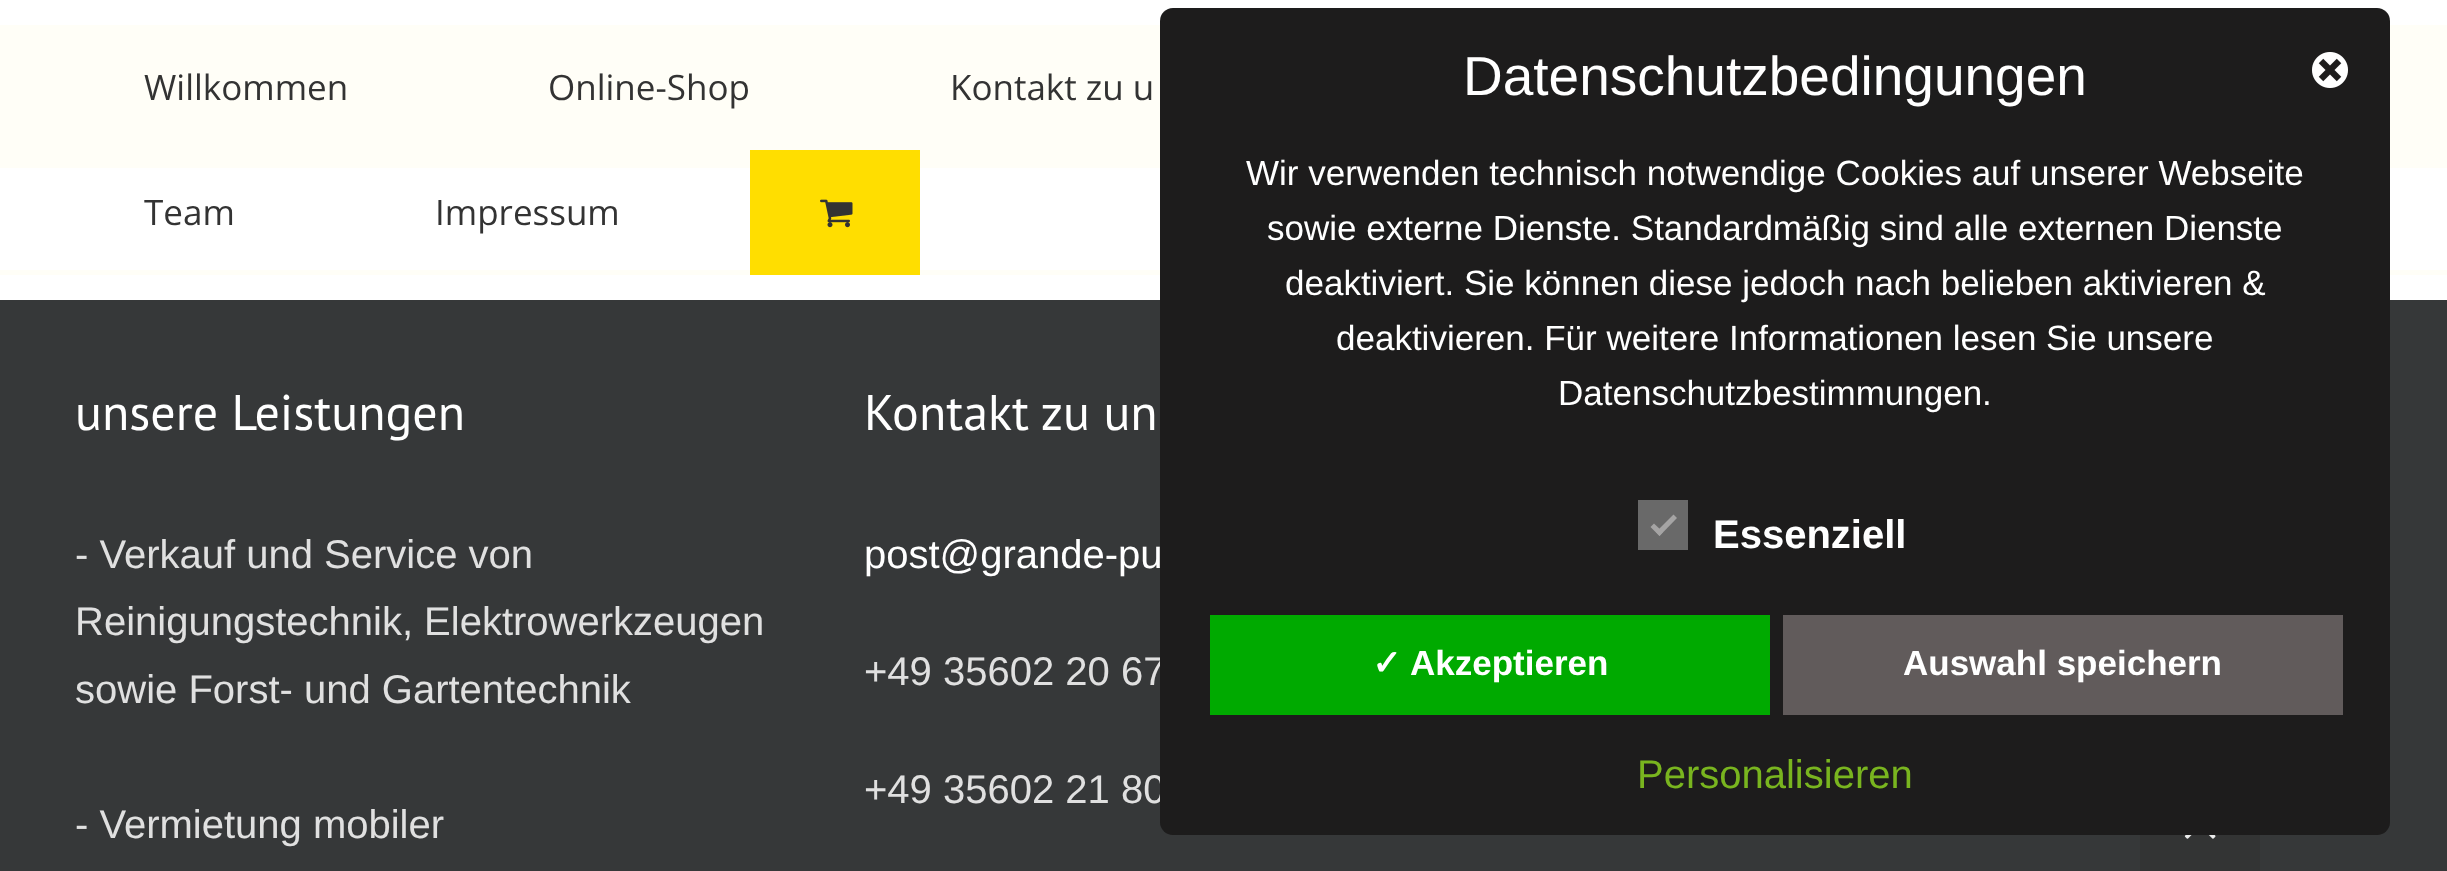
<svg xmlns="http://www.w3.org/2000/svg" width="2447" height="871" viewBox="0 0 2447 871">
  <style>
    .t1 { font: 35px Open Sans; fill: #333; }
    .t2 { font: 50px PT Sans; fill: #fff; }
    .t3 { font: 40px Liberation Sans; fill: #e0e0e0; }
    .t4 { font: 40px Liberation Sans; fill: #fff; }
    .t5 { font: 55px Liberation Sans; fill: #fff; }
    .t6 { font: 35px Liberation Sans; fill: #fff; }
    .t7 { font: bold 40px Liberation Sans; fill: #fff; }
    .t8 { font: bold 35px DejaVu Sans; fill: #fff; }
    .t9 { font: bold 35px Liberation Sans; fill: #fff; }
    .t10 { font: 40px Liberation Sans; fill: #79b51f; }
  </style>
  <rect width="100%" height="100%" fill="#fff"/>
  <rect x="0" y="25" width="2447" height="143" fill="#fffef7"/>
  <text x="144" y="100" class="t1">Willkommen</text>
  <text x="548" y="100" class="t1">Online-Shop</text>
  <text x="950" y="100" class="t1">Kontakt zu u</text>
  <text x="144" y="225" class="t1">Team</text>
  <text x="435" y="225" class="t1">Impressum</text>
  <rect x="0" y="270" width="2447" height="5" fill="#fffef7"/>
  <rect x="750" y="150" width="170" height="125" fill="#ffde00"/>
  <image x="820" y="199" width="33" height="29" href="images/1.png"/>
  <rect x="0" y="300" width="2447" height="571" fill="#363839"/>
  <text x="75" y="430" class="t2">unsere Leistungen</text>
  <text x="75" y="568" class="t3">- Verkauf und Service von</text>
  <text x="75" y="635" class="t3">Reinigungstechnik, Elektrowerkzeugen</text>
  <text x="75" y="703" class="t3">sowie Forst- und Gartentechnik</text>
  <text x="75" y="838" class="t3">- Vermietung mobiler</text>
  <text x="864" y="430" class="t2">Kontakt zu un</text>
  <text x="864" y="568" class="t4">post@grande-pu</text>
  <text x="864" y="685" class="t3">+49 35602 20 67</text>
  <text x="864" y="803" class="t3">+49 35602 21 80</text>
  <rect x="1160" y="8" width="1230" height="827" rx="13" fill="#1d1c1c"/>
  <text x="1463" y="95" class="t5">Datenschutzbedingungen</text>
  <image x="2312" y="52" width="36" height="36" href="images/2.png"/>
  <text x="1246" y="185" class="t6">Wir verwenden technisch notwendige Cookies auf unserer Webseite</text>
  <text x="1267" y="240" class="t6">sowie externe Dienste. Standardmäßig sind alle externen Dienste</text>
  <text x="1285" y="295" class="t6">deaktiviert. Sie können diese jedoch nach belieben aktivieren &amp;</text>
  <text x="1336" y="350" class="t6">deaktivieren. Für weitere Informationen lesen Sie unsere</text>
  <text x="1558" y="405" class="t6">Datenschutzbestimmungen.</text>
  <rect x="1638" y="500" width="50" height="50" fill="#696969"/>
  <path d="M1673.5 514.5L1677 518L1659.5 536L1656 532Z" fill="#a5a4a4"/>
  <path d="M1654 523.5L1663 532L1659.5 536L1650.5 527Z" fill="#a5a4a4"/>
  <text x="1713" y="548" class="t7">Essenziell</text>
  <rect x="1210" y="615" width="560" height="100" fill="#0a0"/>
  <text x="1372" y="675" class="t8">✓</text>
  <text x="1410" y="675" class="t9">Akzeptieren</text>
  <rect x="1783" y="615" width="560" height="100" fill="#615b5b"/>
  <text x="1903" y="675" class="t9">Auswahl speichern</text>
  <text x="1637" y="788" class="t10">Personalisieren</text>
  <rect x="2140" y="835" width="120" height="36" fill="#333434"/>
  <image x="2184" y="835" width="32" height="4" href="images/3.png"/>
</svg>
